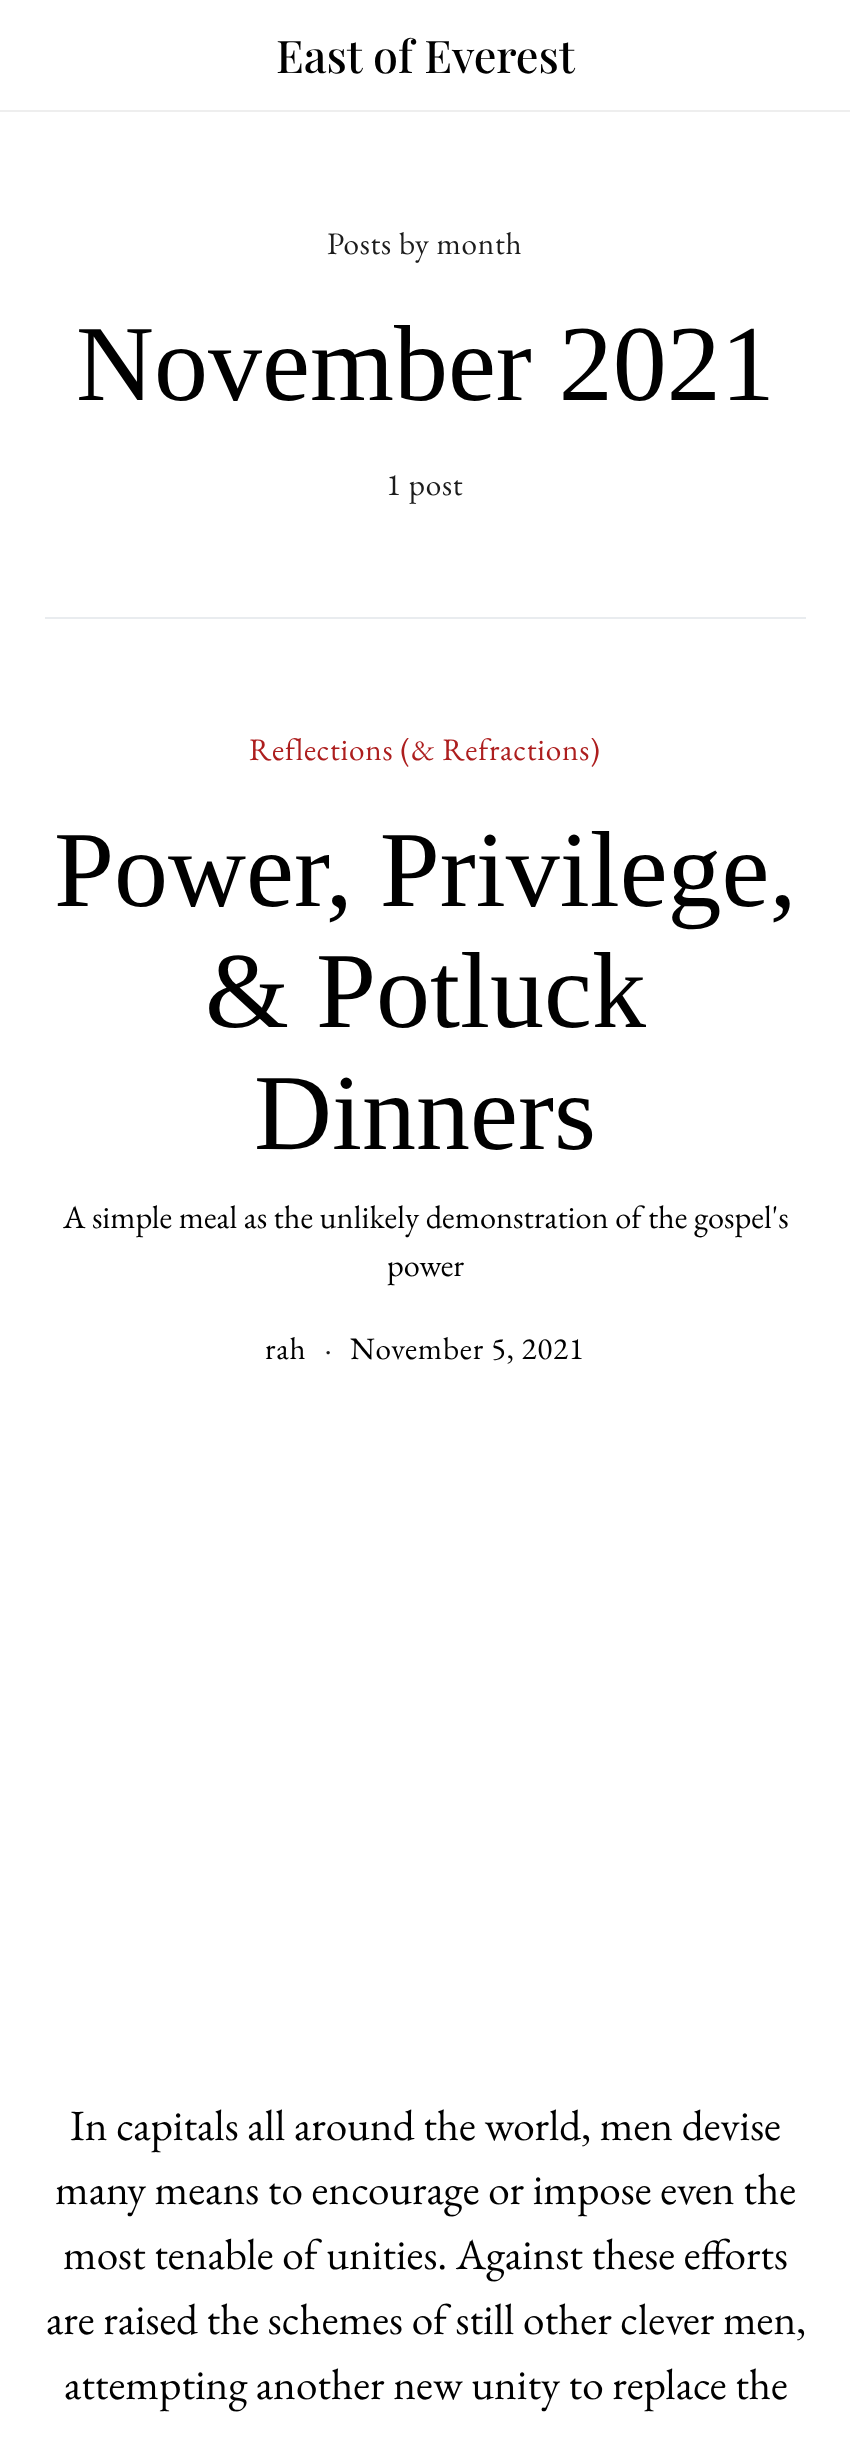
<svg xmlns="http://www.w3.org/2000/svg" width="850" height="2438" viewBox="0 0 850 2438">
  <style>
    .t1 { font: 500 45px Playfair Display; fill: #000; }
    .t2 { font: 31.25px EB Garamond; letter-spacing: 0.75px; fill: #1c1c1c; }
    .t3 { font: 108px Liberation Serif; fill: #000; }
    .t4 { font: 31.25px EB Garamond; letter-spacing: 0.75px; fill: #ad1e1e; }
    .t5 { font: 32.4px EB Garamond; fill: #000; }
    .t6 { font: 31.25px EB Garamond; letter-spacing: 0.75px; fill: #000; }
    .t7 { font: 43.25px EB Garamond; fill: #000; }
  </style>
  <rect width="100%" height="100%" fill="#fff"/>
  <rect x="0" y="110" width="850" height="2" fill="#eee"/>
  <text x="276" y="73" class="t1">East of Everest</text>
  <text x="327" y="254" class="t2">Posts by month</text>
  <text x="76" y="400" class="t3">November 2021</text>
  <text x="386" y="495" class="t2">1 post</text>
  <rect x="45" y="617" width="761" height="2" fill="#e9ecef"/>
  <text x="249" y="760" class="t4">Reflections (&amp; Refractions)</text>
  <text x="54" y="906" class="t3">Power, Privilege,</text>
  <text x="205" y="1027" class="t3">&amp; Potluck</text>
  <text x="254" y="1149" class="t3">Dinners</text>
  <text x="63" y="1228" class="t5">A simple meal as the unlikely demonstration of the gospel's</text>
  <text x="387" y="1276" class="t5">power</text>
  <text x="265" y="1359" class="t6">rah</text>
  <text x="325" y="1359" class="t2">·</text>
  <text x="350" y="1359" class="t6">November 5, 2021</text>
  <text x="70" y="2140" class="t7">In capitals all around the world, men devise</text>
  <text x="55" y="2204" class="t7">many means to encourage or impose even the</text>
  <text x="63" y="2269" class="t7">most tenable of unities. Against these efforts</text>
  <text x="46" y="2334" class="t7">are raised the schemes of still other clever men,</text>
  <text x="64" y="2399" class="t7">attempting another new unity to replace the</text>
</svg>
